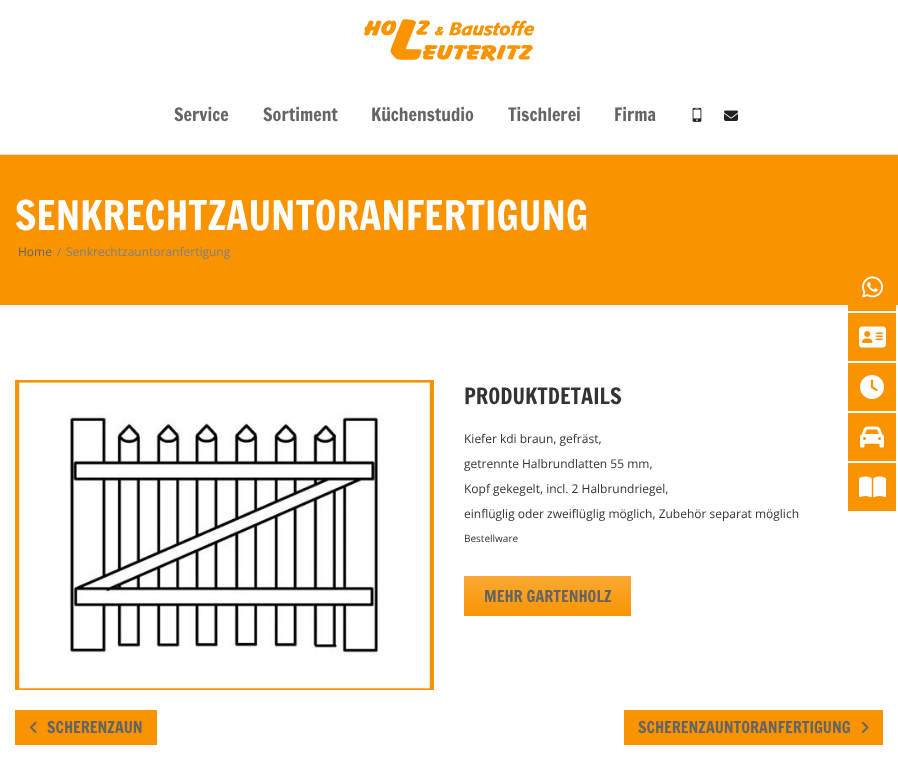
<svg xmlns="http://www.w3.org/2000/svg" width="898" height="773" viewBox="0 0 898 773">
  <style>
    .t1 { font: 18px Francois One; fill: #646464; }
    .t2 { font: 40px Francois One; fill: #fff; }
    .t3 { font: 12px Open Sans; fill: #646464; }
    .t4 { font: 12px Open Sans; fill: #7f7f7f; }
    .t5 { font: 22px Francois One; fill: #333; }
    .t6 { font: 12px Open Sans; fill: #333; }
    .t7 { font: 10px Open Sans; fill: #333; }
    .t8 { font: 16px Francois One; fill: #646464; }
  </style>
  <defs>
    <linearGradient id="g1" gradientUnits="userSpaceOnUse" x1="548" y1="576" x2="548" y2="616"><stop offset="0" stop-color="#faa933"/><stop offset="1" stop-color="#f99403"/></linearGradient>
  </defs>
  <rect width="100%" height="100%" fill="#fff"/>
  <image x="364" y="19" width="170" height="42" href="images/1.png"/>
  <text x="174" y="121" class="t1">Service</text>
  <text x="263" y="121" class="t1">Sortiment</text>
  <text x="371" y="121" class="t1">Küchenstudio</text>
  <text x="508" y="121" class="t1">Tischlerei</text>
  <text x="614" y="121" class="t1">Firma</text>
  <image x="692" y="107" width="10" height="15" href="images/2.png"/>
  <image x="724" y="110" width="14" height="11" href="images/3.png"/>
  <rect x="0" y="154" width="898" height="1" fill="#e1e1e1"/>
  <rect x="0" y="155" width="898" height="150" fill="#f99300"/>
  <text x="15" y="230" class="t2">SENKRECHTZAUNTORANFERTIGUNG</text>
  <text x="18" y="256" class="t3">Home</text>
  <text x="57" y="256" class="t4">/</text>
  <text x="66" y="256" class="t4">Senkrechtzauntoranfertigung</text>
  <image x="15" y="380" width="419" height="310" href="images/4.png"/>
  <text x="464" y="404" class="t5">PRODUKTDETAILS</text>
  <text x="464" y="443" class="t6">Kiefer kdi braun, gefräst,</text>
  <text x="464" y="468" class="t6">getrennte Halbrundlatten 55 mm,</text>
  <text x="464" y="493" class="t6">Kopf gekegelt, incl. 2 Halbrundriegel,</text>
  <text x="464" y="518" class="t6">einflüglig oder zweiflüglig möglich, Zubehör separat möglich</text>
  <text x="464" y="542" class="t7">Bestellware</text>
  <rect x="464" y="576" width="167" height="40" fill="url(#g1)"/>
  <text x="484" y="602" class="t8">MEHR GARTENHOLZ</text>
  <rect x="15" y="710" width="142" height="35" fill="#f99300"/>
  <image x="30" y="721" width="7" height="12" href="images/5.png"/>
  <text x="47" y="733" class="t8">SCHERENZAUN</text>
  <rect x="624" y="710" width="259" height="35" fill="#f99300"/>
  <text x="638" y="733" class="t8">SCHERENZAUNTORANFERTIGUNG</text>
  <image x="861" y="721" width="8" height="12" href="images/6.png"/>
  <rect x="848" y="305" width="48" height="6" fill="#f99300"/>
  <image x="862" y="276" width="21" height="22" href="images/7.png"/>
  <rect x="848" y="313" width="48" height="48" fill="#f99300"/>
  <image x="859" y="326" width="27" height="22" href="images/8.png"/>
  <rect x="848" y="363" width="48" height="48" fill="#f99300"/>
  <image x="860" y="375" width="24" height="24" href="images/9.png"/>
  <rect x="848" y="413" width="48" height="48" fill="#f99300"/>
  <image x="860" y="426" width="24" height="22" href="images/10.png"/>
  <rect x="848" y="463" width="48" height="48" fill="#f99300"/>
  <image x="859" y="476" width="27" height="22" href="images/11.png"/>
</svg>
